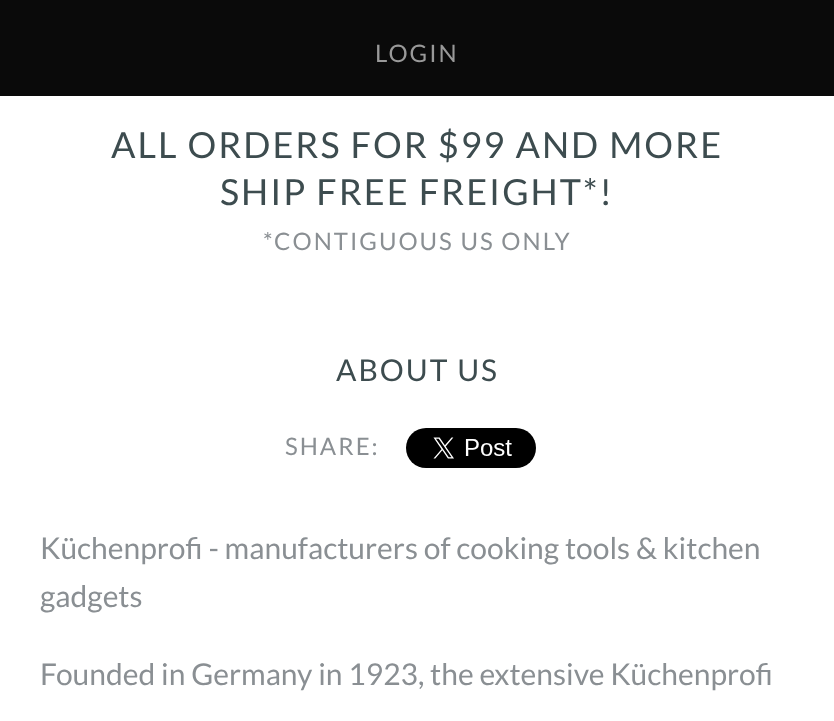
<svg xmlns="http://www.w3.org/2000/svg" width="834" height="721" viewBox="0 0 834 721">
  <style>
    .t1 { font: 24px Lato; letter-spacing: 2px; fill: #999; }
    .t2 { font: 36px Lato; letter-spacing: 2px; fill: #3d4c4f; }
    .t3 { font: 24px Lato; letter-spacing: 2px; fill: #8a8f93; }
    .t4 { font: 30px Lato; letter-spacing: 2px; fill: #3d4c4f; }
    .t5 { font: 30px Lato; fill: #8a8f93; }
  </style>
  <rect width="100%" height="100%" fill="#fff"/>
  <rect x="0" y="0" width="834" height="96" fill="#0a0a0a"/>
  <text x="375" y="62" class="t1">LOGIN</text>
  <text x="111" y="158" class="t2">ALL ORDERS FOR $99 AND MORE</text>
  <text x="220" y="205" class="t2">SHIP FREE FREIGHT*!</text>
  <text x="263" y="250" class="t3">*CONTIGUOUS US ONLY</text>
  <text x="336" y="381" class="t4">ABOUT US</text>
  <text x="285" y="455" class="t3">SHARE:</text>
  <image x="406" y="428" width="130" height="40" href="images/1.png"/>
  <text x="40" y="559" class="t5">Küchenprofi - manufacturers of cooking tools &amp; kitchen</text>
  <text x="40" y="607" class="t5">gadgets</text>
  <text x="40" y="685" class="t5">Founded in Germany in 1923, the extensive Küchenprofi</text>
</svg>
